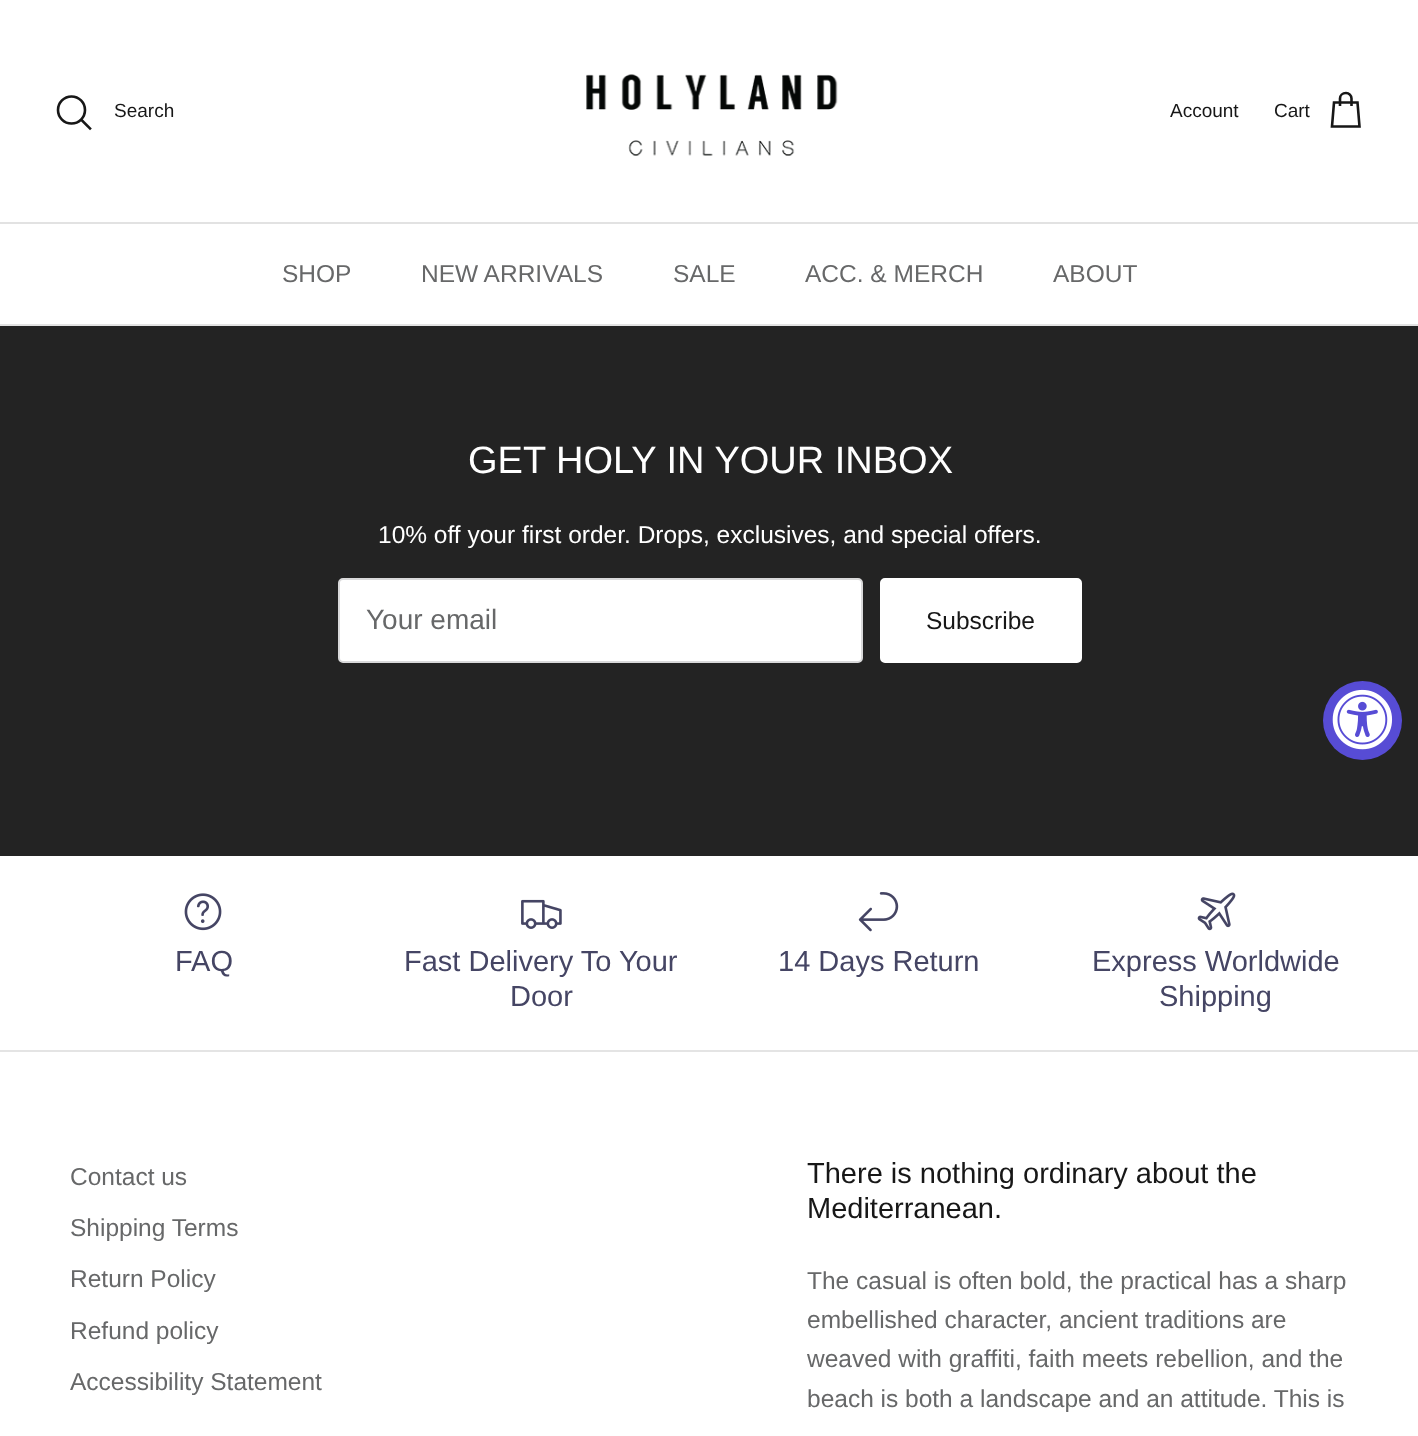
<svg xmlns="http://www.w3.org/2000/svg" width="1418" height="1436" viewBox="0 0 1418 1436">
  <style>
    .t1 { font: 19px Arimo; fill: #171717; }
    .t2 { font: 24.5px Arimo; fill: #676869; }
    .t3 { font: 38px Arimo; fill: #fff; }
    .t4 { font: 24.5px Arimo; fill: #fff; }
    .t5 { font: 28px Arimo; fill: #676869; }
    .t6 { font: 24.5px Arimo; fill: #171717; }
    .t7 { font: 29px Arimo; fill: #454564; }
    .t8 { font: 29px Arimo; fill: #171717; }
  </style>
  <rect width="100%" height="100%" fill="#fff"/>
  <rect x="0" y="222" width="1418" height="2" fill="#e2e2e2"/>
  <circle cx="71.5" cy="110" r="13.5" fill="none" stroke="#171717" stroke-width="2.6"/>
  <text x="114" y="117" class="t1">Search</text>
  <path d="M82 120.5L90 128.5" fill="none" stroke="#171717" stroke-width="2.6" stroke-linecap="square"/>
  <image x="586" y="74" width="252" height="82" href="images/1.png"/>
  <text x="1170" y="117" class="t1">Account</text>
  <text x="1274" y="117" class="t1">Cart</text>
  <path d="M1351.5 106V98.5C1351.5 95.5 1349 93 1346 93C1342.5 93 1340 95.5 1340 98.5V106M1334 102.5H1357.5L1359.5 126.5H1332Z" fill="none" stroke="#171717" stroke-width="2.6"/>
  <rect x="0" y="324" width="1418" height="2" fill="#e2e2e2"/>
  <text x="282" y="282" class="t2">SHOP</text>
  <text x="421" y="282" class="t2">NEW ARRIVALS</text>
  <text x="673" y="282" class="t2">SALE</text>
  <text x="805" y="282" class="t2">ACC. &amp; MERCH</text>
  <text x="1053" y="282" class="t2">ABOUT</text>
  <rect x="0" y="326" width="1418" height="530" fill="#232323"/>
  <text x="468" y="473" class="t3">GET HOLY IN YOUR INBOX</text>
  <text x="378" y="543" class="t4">10% off your first order. Drops, exclusives, and special offers.</text>
  <rect x="339" y="579" width="523" height="83" rx="4" fill="#fff" stroke="#d9d9da" stroke-width="2"/>
  <text x="366" y="629" class="t5">Your email</text>
  <rect x="881" y="579" width="200" height="83" rx="4" fill="#fff" stroke="#fff" stroke-width="2"/>
  <text x="926" y="629" class="t6">Subscribe</text>
  <image x="184" y="893" width="38" height="38" href="images/2.png"/>
  <text x="175" y="971" class="t7">FAQ</text>
  <image x="521" y="899" width="41" height="30" href="images/3.png"/>
  <text x="404" y="971" class="t7">Fast Delivery To Your</text>
  <text x="510" y="1006" class="t7">Door</text>
  <image x="858" y="892" width="41" height="40" href="images/4.png"/>
  <text x="778" y="971" class="t7">14 Days Return</text>
  <image x="1197" y="892" width="39" height="39" href="images/5.png"/>
  <text x="1092" y="971" class="t7">Express Worldwide</text>
  <text x="1159" y="1006" class="t7">Shipping</text>
  <rect x="0" y="1050" width="1418" height="2" fill="#e4e4e4"/>
  <text x="70" y="1185" class="t2">Contact us</text>
  <text x="70" y="1236" class="t2">Shipping Terms</text>
  <text x="70" y="1287" class="t2">Return Policy</text>
  <text x="70" y="1339" class="t2">Refund policy</text>
  <text x="70" y="1390" class="t2">Accessibility Statement</text>
  <text x="807" y="1183" class="t8">There is nothing ordinary about the</text>
  <text x="807" y="1218" class="t8">Mediterranean.</text>
  <text x="807" y="1289" class="t2">The casual is often bold, the practical has a sharp</text>
  <text x="807" y="1328" class="t2">embellished character, ancient traditions are</text>
  <text x="807" y="1367" class="t2">weaved with graffiti, faith meets rebellion, and the</text>
  <text x="807" y="1407" class="t2">beach is both a landscape and an attitude. This is</text>
  <circle cx="1362.5" cy="720.5" r="39.5" fill="#574cd5"/>
  <image x="1332" y="689" width="61" height="61" href="images/6.png"/>
</svg>
